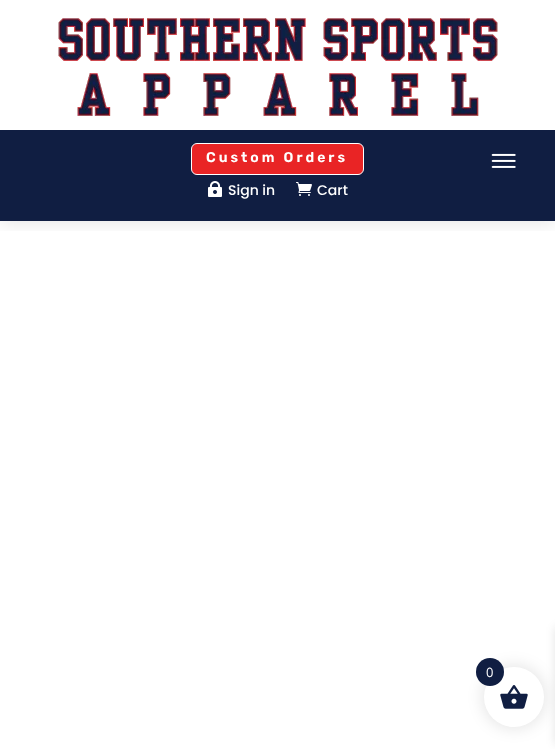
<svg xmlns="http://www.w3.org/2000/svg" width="555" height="749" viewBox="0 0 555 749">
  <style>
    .t1 { font: 600 14px Rubik; letter-spacing: 3px; fill: #fff; }
    .t2 { font: 500 14px Poppins; fill: #fff; }
    .t3 { font: 13px Open Sans; fill: #fff; }
  </style>
  <defs>
    <clipPath id="clip1"><rect x="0" y="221" width="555" height="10"/></clipPath>
  </defs>
  <rect width="100%" height="100%" fill="#fff"/>
  <g clip-path="url(#clip1)">
    <rect x="0" y="2" width="555" height="221" fill="#0000001a" filter="blur(9px)"/>
  </g>
  <image x="58" y="18" width="440" height="98" href="images/1.png"/>
  <rect x="0" y="130" width="555" height="91" fill="#101e42"/>
  <rect x="191.5" y="143.5" width="172" height="31" rx="5.5" fill="#e92425" stroke="#fff"/>
  <text x="206" y="162" class="t1">Custom Orders</text>
  <image x="491" y="153" width="25" height="15" href="images/2.png"/>
  <image x="208" y="181" width="14" height="16" href="images/3.png"/>
  <text x="228" y="195" class="t2">Sign in</text>
  <image x="296" y="182" width="16" height="14" href="images/4.png"/>
  <text x="317" y="195" class="t2">Cart</text>
  <rect x="482" y="665" width="64" height="64" rx="32" fill="#0000001a" filter="blur(7.5px)"/>
  <rect x="555" y="627" width="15" height="117" fill="#0000001a" filter="blur(5px)"/>
  <circle cx="514" cy="697" r="30" fill="#fff"/>
  <image x="500" y="685" width="28" height="24" href="images/5.png"/>
  <circle cx="490" cy="672" r="14" fill="#101e42"/>
  <text x="486" y="677" class="t3">0</text>
</svg>
